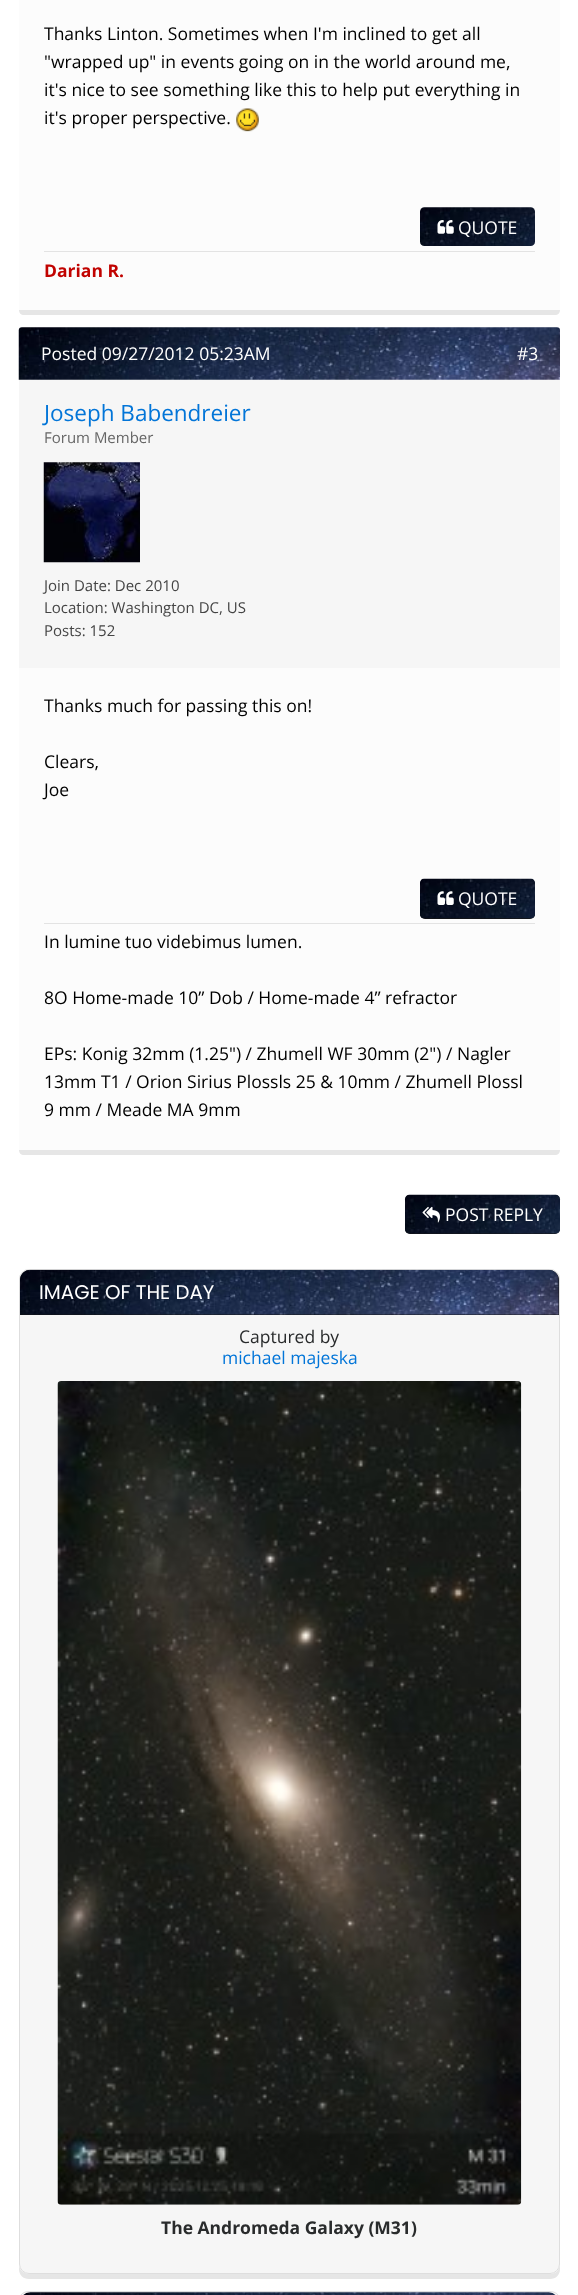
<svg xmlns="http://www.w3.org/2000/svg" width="578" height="2295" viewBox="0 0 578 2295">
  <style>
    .t1 { font: 17.5px Open Sans; fill: #000; }
    .t2 { font: 17.5px Open Sans; fill: #fff; }
    .t3 { font: bold 17.5px Open Sans; fill: #c10300; }
    .t4 { font: 22.5px Open Sans; fill: #0275d8; }
    .t5 { font: 15px Open Sans; fill: #666; }
    .t6 { font: 15px Open Sans; fill: #444; }
    .t7 { font: 19.75px Poppins; fill: #fff; }
    .t8 { font: 17.5px Open Sans; fill: #292b2c; }
    .t9 { font: 17.5px Open Sans; fill: #0275d8; }
    .t10 { font: bold 17.5px Open Sans; fill: #292b2c; }
  </style>
  <rect width="100%" height="100%" fill="#fff"/>
  <path d="M19 307V310C19 313 21 315 24 315H555C558 315 560 313 560 310V306C560 308 558 310 556 310H23C21 310 20 309 19 307Z" fill="#e6e6e6"/>
  <rect x="19" y="0" width="541" height="310" fill="#fcfcfc"/>
  <text x="44" y="40" class="t1">Thanks Linton. Sometimes when I'm inclined to get all</text>
  <text x="44" y="68" class="t1">"wrapped up" in events going on in the world around me,</text>
  <text x="44" y="96" class="t1">it's nice to see something like this to help put everything in</text>
  <text x="44" y="124" class="t1">it's proper perspective.</text>
  <image x="236" y="108" width="23" height="24" href="images/1.png"/>
  <image x="420" y="207" width="115" height="39" href="images/2.png"/>
  <image x="437" y="220" width="17" height="14" href="images/3.png"/>
  <text x="458" y="234" class="t2">QUOTE</text>
  <rect x="44" y="251" width="491" height="1" fill="#e3e3e3"/>
  <text x="44" y="277" class="t3">Darian R.</text>
  <path d="M19 1147V1150C19 1153 21 1155 24 1155H555C558 1155 560 1153 560 1150V1146C560 1148 558 1150 556 1150H23C21 1150 20 1149 19 1147Z" fill="#e6e6e6"/>
  <image x="18" y="327" width="542" height="53" href="images/4.png"/>
  <text x="41" y="360" class="t2">Posted 09/27/2012 05:23AM</text>
  <text x="517" y="360" class="t2">#3</text>
  <rect x="19" y="668" width="541" height="482" fill="#fcfcfc"/>
  <rect x="19" y="380" width="541" height="288" fill="#f6f6f6"/>
  <text x="44" y="421" class="t4">Joseph Babendreier</text>
  <text x="44" y="443" class="t5">Forum Member</text>
  <image x="43" y="462" width="97" height="101" href="images/5.png"/>
  <text x="44" y="591" class="t6">Join Date: Dec 2010</text>
  <text x="44" y="613" class="t6">Location: Washington DC, US</text>
  <text x="44" y="636" class="t6">Posts: 152</text>
  <text x="44" y="712" class="t1">Thanks much for passing this on!</text>
  <text x="44" y="768" class="t1">Clears,</text>
  <text x="44" y="796" class="t1">Joe</text>
  <rect x="420" y="879" width="115" height="40" rx="5" fill="#161616"/>
  <image x="420" y="878" width="115" height="41" href="images/6.png"/>
  <image x="437" y="891" width="17" height="14" href="images/7.png"/>
  <text x="458" y="905" class="t2">QUOTE</text>
  <rect x="44" y="923" width="491" height="1" fill="#e3e3e3"/>
  <text x="44" y="948" class="t1">In lumine tuo videbimus lumen.</text>
  <text x="44" y="1004" class="t1">8O Home-made 10” Dob / Home-made 4” refractor</text>
  <text x="44" y="1060" class="t1">EPs: Konig 32mm (1.25") / Zhumell WF 30mm (2") / Nagler</text>
  <text x="44" y="1088" class="t1">13mm T1 / Orion Sirius Plossls 25 &amp; 10mm / Zhumell Plossl</text>
  <text x="44" y="1116" class="t1">9 mm / Meade MA 9mm</text>
  <rect x="405" y="1195" width="155" height="39" rx="5" fill="#161616"/>
  <image x="404" y="1194" width="157" height="40" href="images/8.png"/>
  <image x="422" y="1206" width="18" height="17" href="images/9.png"/>
  <text x="445" y="1221" class="t2">POST REPLY</text>
  <path d="M19 2266V2269C19 2275 23 2279 29 2279H550C556 2279 560 2275 560 2269V2264C560 2269 556 2274 550 2274H29C24 2274 20 2270 19 2266Z" fill="#e6e6e6"/>
  <rect x="19.5" y="1269.5" width="540" height="1004" rx="9.5" fill="#f6f6f6" stroke="#dedede"/>
  <path d="M30 1270H549C554.5 1270 559 1274.5 559 1280V1315H20V1280C20 1274.5 24.5 1270 30 1270Z" fill="#161616"/>
  <image x="20" y="1269" width="539" height="46" href="images/10.png"/>
  <text x="39" y="1299" class="t7">IMAGE OF THE DAY</text>
  <text x="239" y="1343" class="t8">Captured by</text>
  <text x="222" y="1364" class="t9">michael majeska</text>
  <image x="57" y="1381" width="465" height="824" href="images/11.png"/>
  <text x="161" y="2234" class="t10">The Andromeda Galaxy (M31)</text>
  <rect x="19.5" y="2291.5" width="540" height="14" rx="9.5" fill="#f6f6f6" stroke="#dedede"/>
  <image x="23" y="2292" width="533" height="3" href="images/12.png"/>
</svg>
